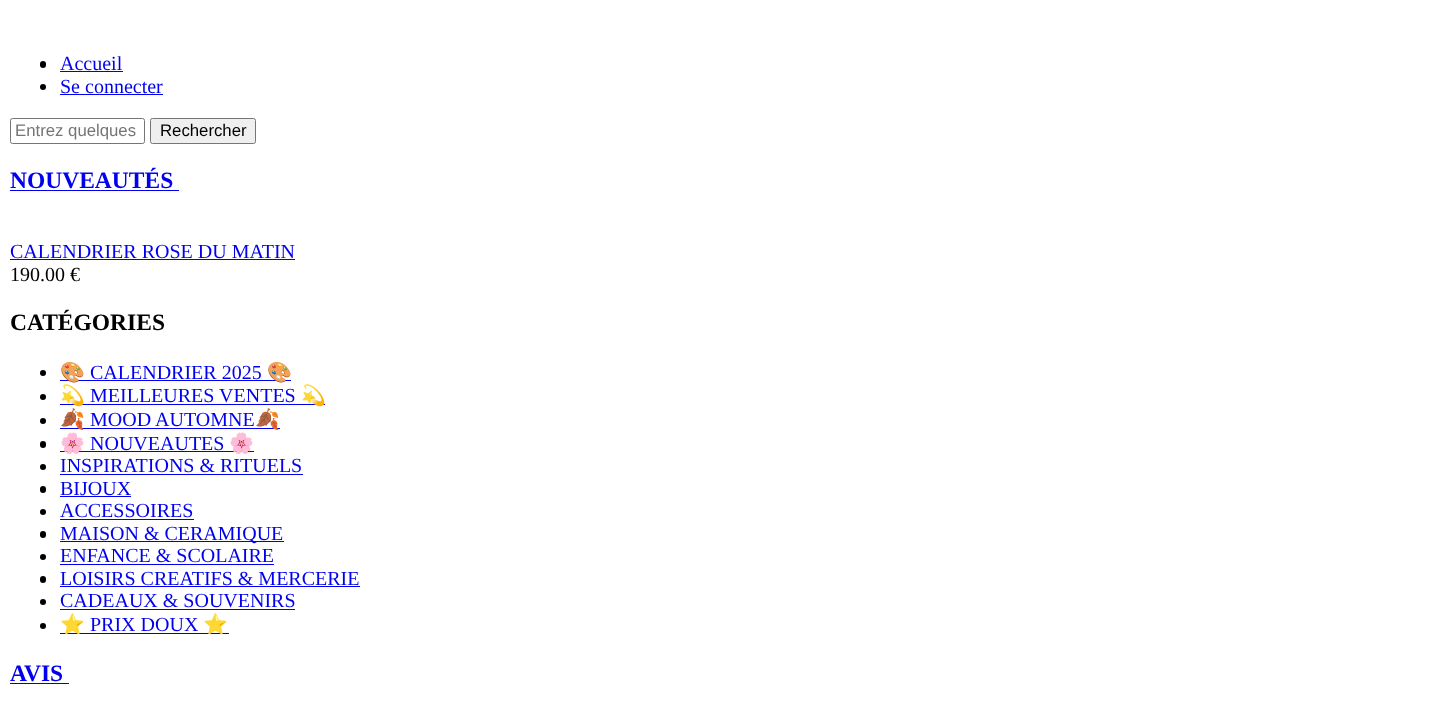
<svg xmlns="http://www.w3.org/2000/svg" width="1435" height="716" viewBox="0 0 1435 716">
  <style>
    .t1 { font: 20px Liberation Serif; fill: #00e; }
    .t2 { font: 16.75px Liberation Sans; fill: #757575; }
    .t3 { font: 16.75px Liberation Sans; fill: #000; }
    .t4 { font: bold 23.5px Liberation Serif; fill: #00e; }
    .t5 { font: 20px Liberation Serif; fill: #000; }
    .t6 { font: bold 23.5px Liberation Serif; fill: #000; }
    .t7 { font: 20px Noto Color Emoji; fill: #00e; }
  </style>
  <rect width="100%" height="100%" fill="#fff"/>
  <rect x="40" y="61" width="6" height="7" rx="3" fill="#000"/>
  <text x="60" y="70" class="t1">Accueil</text>
  <rect x="60" y="71" width="63" height="1" fill="#00e"/>
  <circle cx="43" cy="87" r="3" fill="#000"/>
  <text x="60" y="93" class="t1">Se connecter</text>
  <rect x="60" y="94" width="103" height="1" fill="#00e"/>
  <rect x="10.5" y="118.5" width="134" height="25" rx="2" fill="none" stroke="#767676"/>
  <text x="15" y="136" class="t2">Entrez quelques</text>
  <rect x="150.5" y="118.5" width="105" height="25" rx="2" fill="#efefef" stroke="#767676"/>
  <text x="160" y="136" class="t3">Rechercher</text>
  <text x="10" y="188" class="t4">NOUVEAUTÉS</text>
  <rect x="10" y="190" width="169" height="1" fill="#00e"/>
  <text x="10" y="258" class="t1">CALENDRIER ROSE DU MATIN</text>
  <rect x="10" y="259" width="285" height="1" fill="#00e"/>
  <text x="10" y="281" class="t5">190.00 €</text>
  <text x="10" y="330" class="t6">CATÉGORIES</text>
  <circle cx="43" cy="373" r="3" fill="#000"/>
  <rect x="60" y="380" width="231" height="1" fill="#00e"/>
  <text x="60" y="379" class="t7">🎨</text>
  <text x="90" y="379" class="t1">CALENDRIER 2025</text>
  <text x="267" y="379" class="t7">🎨</text>
  <circle cx="43" cy="397" r="3" fill="#000"/>
  <rect x="60" y="404" width="265" height="1" fill="#00e"/>
  <text x="60" y="402" class="t7">💫</text>
  <text x="90" y="402" class="t1">MEILLEURES VENTES</text>
  <text x="301" y="402" class="t7">💫</text>
  <circle cx="43" cy="421" r="3" fill="#000"/>
  <rect x="60" y="428" width="220" height="1" fill="#00e"/>
  <text x="60" y="426" class="t7">🍂</text>
  <text x="90" y="426" class="t1">MOOD AUTOMNE</text>
  <text x="255" y="426" class="t7">🍂</text>
  <rect x="40" y="441" width="6" height="7" rx="3" fill="#000"/>
  <rect x="60" y="451" width="194" height="1" fill="#00e"/>
  <text x="60" y="450" class="t7">🌸</text>
  <text x="90" y="450" class="t1">NOUVEAUTES</text>
  <text x="229" y="450" class="t7">🌸</text>
  <circle cx="43" cy="467" r="3" fill="#000"/>
  <text x="60" y="472" class="t1">INSPIRATIONS &amp; RITUELS</text>
  <rect x="60" y="474" width="243" height="1" fill="#00e"/>
  <rect x="40" y="486" width="6" height="7" rx="3" fill="#000"/>
  <text x="60" y="495" class="t1">BIJOUX</text>
  <rect x="60" y="496" width="71" height="1" fill="#00e"/>
  <circle cx="43" cy="512" r="3" fill="#000"/>
  <text x="60" y="517" class="t1">ACCESSOIRES</text>
  <rect x="60" y="519" width="134" height="1" fill="#00e"/>
  <rect x="40" y="531" width="6" height="7" rx="3" fill="#000"/>
  <rect x="60" y="541" width="224" height="1" fill="#00e"/>
  <text x="60" y="540" class="t1">MAISON &amp; CERAMIQUE</text>
  <circle cx="43" cy="557" r="3" fill="#000"/>
  <text x="60" y="562" class="t1">ENFANCE &amp; SCOLAIRE</text>
  <rect x="60" y="564" width="214" height="1" fill="#00e"/>
  <rect x="40" y="576" width="6" height="7" rx="3" fill="#000"/>
  <text x="60" y="585" class="t1">LOISIRS CREATIFS &amp; MERCERIE</text>
  <rect x="60" y="586" width="300" height="1" fill="#00e"/>
  <circle cx="43" cy="602" r="3" fill="#000"/>
  <text x="60" y="607" class="t1">CADEAUX &amp; SOUVENIRS</text>
  <rect x="60" y="609" width="235" height="1" fill="#00e"/>
  <circle cx="43" cy="626" r="3" fill="#000"/>
  <rect x="60" y="633" width="169" height="1" fill="#00e"/>
  <text x="60" y="631" class="t7">⭐</text>
  <text x="90" y="631" class="t1">PRIX DOUX</text>
  <text x="203" y="631" class="t7">⭐</text>
  <text x="10" y="681" class="t4">AVIS</text>
  <rect x="10" y="683" width="59" height="1" fill="#00e"/>
</svg>
